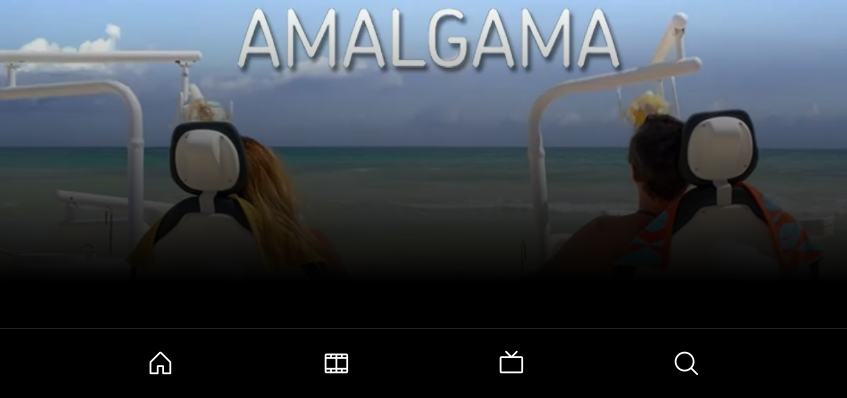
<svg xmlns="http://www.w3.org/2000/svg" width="847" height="398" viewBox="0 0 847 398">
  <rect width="100%" height="100%" fill="#000"/>
  <image x="0" y="0" width="847" height="328" href="images/1.png"/>
  <rect x="0" y="328" width="847" height="1" fill="#1f2123"/>
  <image x="149" y="351" width="23" height="24" href="images/2.png"/>
  <image x="324" y="353" width="25" height="21" href="images/3.png"/>
  <image x="499" y="350" width="25" height="24" href="images/4.png"/>
  <image x="674" y="351" width="25" height="24" href="images/5.png"/>
</svg>
